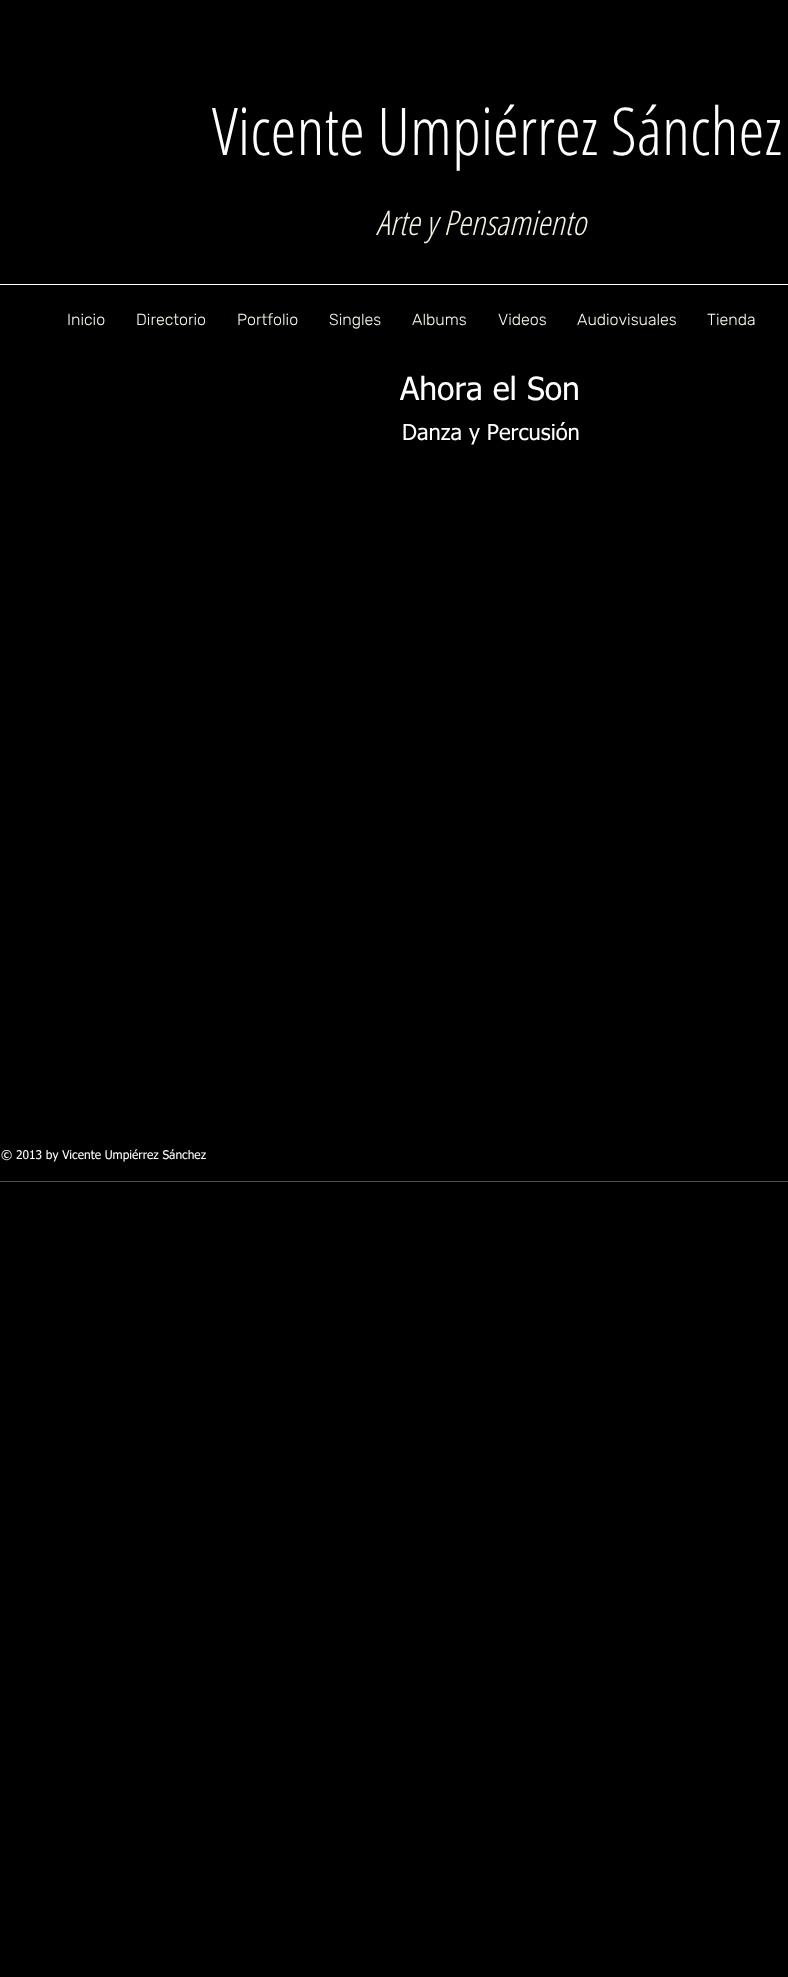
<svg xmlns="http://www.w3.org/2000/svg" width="788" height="1977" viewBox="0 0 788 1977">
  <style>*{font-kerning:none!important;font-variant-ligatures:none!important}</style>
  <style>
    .t1 { font: 300 66px Open Sans Condensed; fill: #fffffe; }
    .t2 { font: italic 300 34px Open Sans Condensed; fill: #f7f5e1; }
    .t3 { font: 300 16px Rubik; fill: #fff9eb; }
    .t4 { font: 32px tahoma; fill: #fffffe; }
    .t5 { font: 22px tahoma; fill: #fffffe; }
    .t6 { font: 12px tahoma; fill: #fffffe; }
  </style>
  <rect width="100%" height="100%" fill="#000"/>
  <text x="212" y="155" class="t1">Vicente Umpiérrez Sánchez</text>
  <text x="376" y="235" class="t2">Arte y Pensamiento</text>
  <rect x="0" y="284" width="788" height="1" fill="#fff"/>
  <text x="67" y="325" class="t3">Inicio</text>
  <text x="136" y="325" class="t3">Directorio</text>
  <text x="237" y="325" class="t3">Portfolio</text>
  <text x="329" y="325" class="t3">Singles</text>
  <text x="412" y="325" class="t3">Albums</text>
  <text x="498" y="325" class="t3">Videos</text>
  <text x="577" y="325" class="t3">Audiovisuales</text>
  <text x="707" y="325" class="t3">Tienda</text>
  <text x="400" y="400" class="t4">Ahora el Son</text>
  <text x="402" y="440" class="t5">Danza y Percusión</text>
  <text x="1" y="1159" class="t6">© 2013 by Vicente Umpiérrez Sánchez</text>
  <rect x="0" y="1181" width="788" height="1" fill="#4e4e4e"/>
</svg>
